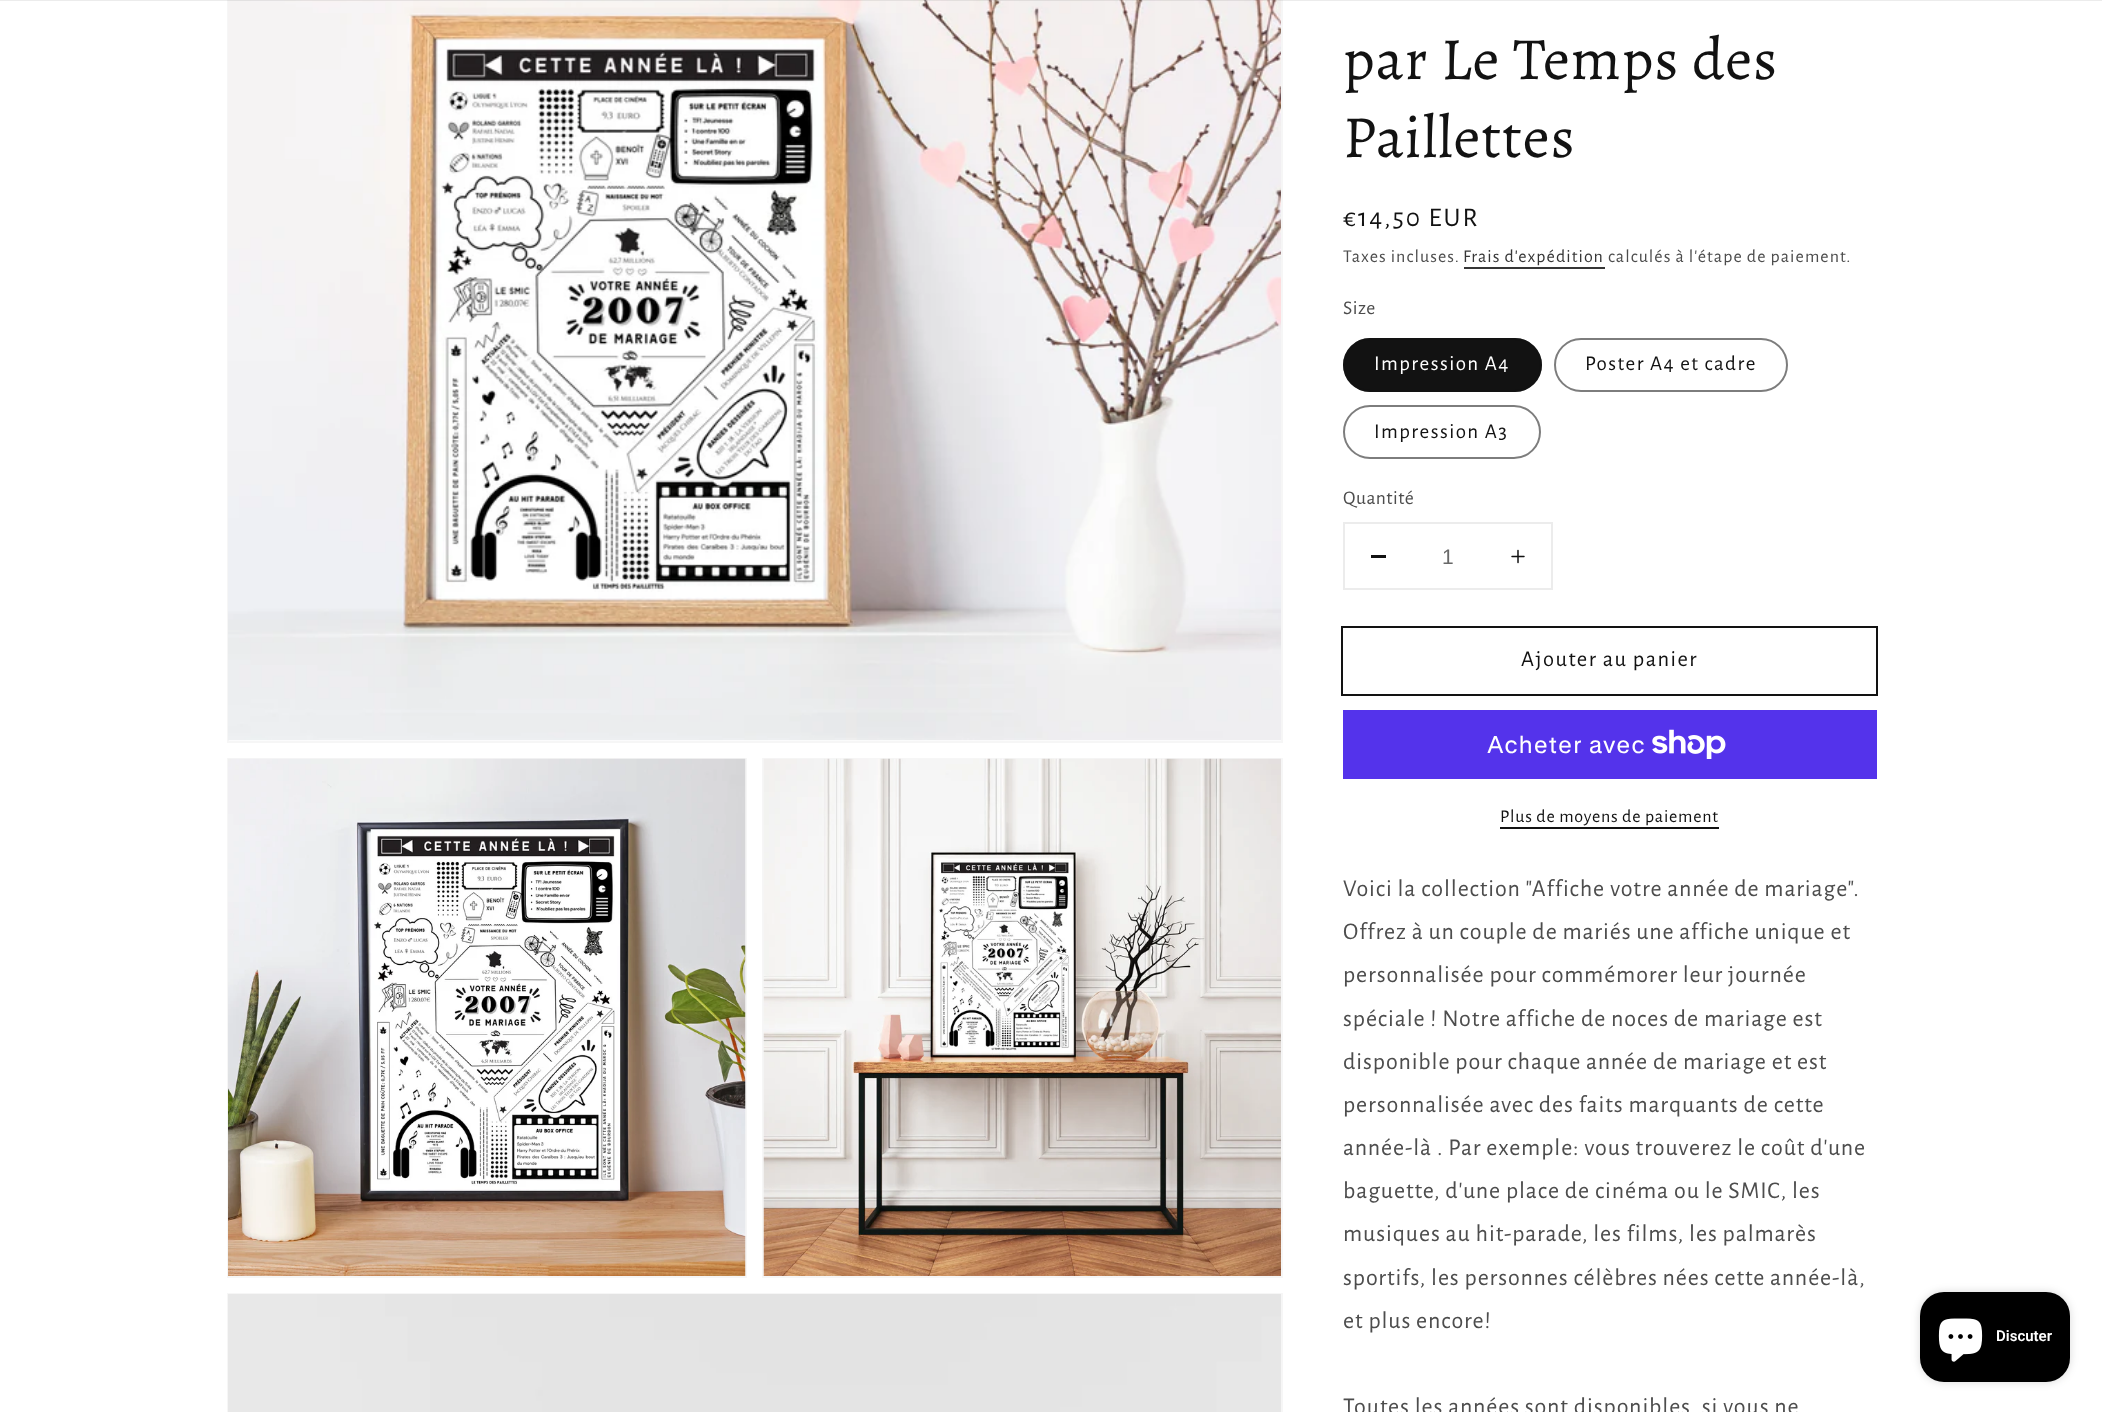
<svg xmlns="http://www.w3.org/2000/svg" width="2102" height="1412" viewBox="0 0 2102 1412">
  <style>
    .t1 { font: 60px Alegreya; letter-spacing: 0.9px; fill: #121212; }
    .t2 { font: 27px Alegreya Sans; letter-spacing: 2px; fill: #121212; }
    .t3 { font: 18px Alegreya Sans; letter-spacing: 1.05px; fill: #4d4d4d; }
    .t4 { font: 18px Alegreya Sans; letter-spacing: 1.05px; fill: #363636; }
    .t5 { font: 19.5px Alegreya Sans; letter-spacing: 0.5px; fill: #4d4d4d; }
    .t6 { font: 21px Alegreya Sans; letter-spacing: 1.5px; fill: #fff; }
    .t7 { font: 21px Alegreya Sans; letter-spacing: 1.5px; fill: #121212; }
    .t8 { font: 21px Liberation Sans; fill: #686868; }
    .t9 { font: 22.5px Alegreya Sans; letter-spacing: 1.5px; fill: #121212; }
    .t10 { font: 24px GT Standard; letter-spacing: 0.9px; fill: #fff; }
    .t11 { font: 18px Alegreya Sans; letter-spacing: 0.75px; fill: #121212; }
    .t12 { font: 24px Alegreya Sans; letter-spacing: 0.9px; fill: #4d4d4d; }
    .t13 { font: 600 15px Roboto; fill: #fff; }
  </style>
  <defs>
    <clipPath id="clip1"><rect x="1997" y="1314" width="55" height="45"/></clipPath>
  </defs>
  <rect width="100%" height="100%" fill="#fff"/>
  <rect x="228" y="-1" width="1054" height="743" fill="none" stroke="#f6f6f6" stroke-width="2"/>
  <image x="228" y="0" width="1053" height="741" href="images/1.png"/>
  <rect x="0" y="0" width="2102" height="1" fill="#12121214"/>
  <rect x="228" y="759" width="518" height="518" fill="none" stroke="#f6f6f6" stroke-width="2"/>
  <image x="228" y="758" width="518" height="518" href="images/2.png"/>
  <rect x="763" y="759" width="519" height="518" fill="none" stroke="#f6f6f6" stroke-width="2"/>
  <image x="763" y="758" width="518" height="518" href="images/3.png"/>
  <rect x="228" y="1294" width="1054" height="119" fill="none" stroke="#f6f6f6" stroke-width="2"/>
  <image x="228" y="1294" width="1053" height="118" href="images/4.png"/>
  <text x="1343" y="79" class="t1">par Le Temps des</text>
  <text x="1343" y="157" class="t1">Paillettes</text>
  <text x="1343" y="226" class="t2">€14,50 EUR</text>
  <text x="1343" y="262" class="t3">Taxes incluses.</text>
  <text x="1463" y="262" class="t4">Frais d'expédition</text>
  <rect x="1464" y="267" width="141" height="2" fill="#363636"/>
  <text x="1608" y="262" class="t3">calculés à l'étape de paiement.</text>
  <text x="1343" y="314" class="t5">Size</text>
  <rect x="1343" y="338" width="199" height="54" rx="27" fill="#121212"/>
  <rect x="1344" y="339" width="197" height="52" rx="26" fill="none" stroke="#1212128c" stroke-width="2"/>
  <text x="1374" y="370" class="t6">Impression A4</text>
  <rect x="1555" y="339" width="232" height="52" rx="26" fill="none" stroke="#7d7d7d" stroke-width="2"/>
  <text x="1585" y="370" class="t7">Poster A4 et cadre</text>
  <rect x="1344" y="406" width="196" height="52" rx="26" fill="none" stroke="#7d7d7d" stroke-width="2"/>
  <text x="1374" y="438" class="t7">Impression A3</text>
  <text x="1343" y="504" class="t5">Quantité</text>
  <rect x="1344" y="523" width="208" height="66" fill="none" stroke="#ececec" stroke-width="2"/>
  <rect x="1371" y="555" width="15" height="3" fill="#121212"/>
  <text x="1442" y="564" class="t8">1</text>
  <image x="1511" y="549" width="14" height="15" href="images/5.png"/>
  <rect x="1342" y="627" width="535" height="68" fill="none" stroke="#121212" stroke-width="2"/>
  <text x="1521" y="666" class="t9">Ajouter au panier</text>
  <rect x="1343" y="710" width="534" height="69" fill="#5433eb"/>
  <text x="1487" y="753" class="t10">Acheter avec</text>
  <image x="1652" y="729" width="74" height="30" href="images/6.png"/>
  <text x="1500" y="822" class="t11">Plus de moyens de paiement</text>
  <rect x="1500" y="827" width="219" height="2" fill="#121212"/>
  <text x="1343" y="896" class="t12">Voici la collection "Affiche votre année de mariage".</text>
  <text x="1343" y="939" class="t12">Offrez à un couple de mariés une affiche unique et</text>
  <text x="1343" y="982" class="t12">personnalisée pour commémorer leur journée</text>
  <text x="1343" y="1026" class="t12">spéciale ! Notre affiche de noces de mariage est</text>
  <text x="1343" y="1069" class="t12">disponible pour chaque année de mariage et est</text>
  <text x="1343" y="1112" class="t12">personnalisée avec des faits marquants de cette</text>
  <text x="1343" y="1155" class="t12">année-là . Par exemple: vous trouverez le coût d'une</text>
  <text x="1343" y="1198" class="t12">baguette, d'une place de cinéma ou le SMIC, les</text>
  <text x="1343" y="1241" class="t12">musiques au hit-parade, les films, les palmarès</text>
  <text x="1343" y="1285" class="t12">sportifs, les personnes célèbres nées cette année-là,</text>
  <text x="1343" y="1328" class="t12">et plus encore!</text>
  <text x="1343" y="1414" class="t12">Toutes les années sont disponibles, si vous ne</text>
  <rect x="1920" y="1292" width="150" height="90" rx="24" fill="#00000026" filter="blur(4px)"/>
  <rect x="1920" y="1292" width="150" height="90" rx="24" fill="#000"/>
  <image x="1938" y="1318" width="45" height="44" href="images/7.png"/>
  <g clip-path="url(#clip1)">
    <text x="1996" y="1341" class="t13">Discuter</text>
  </g>
</svg>
